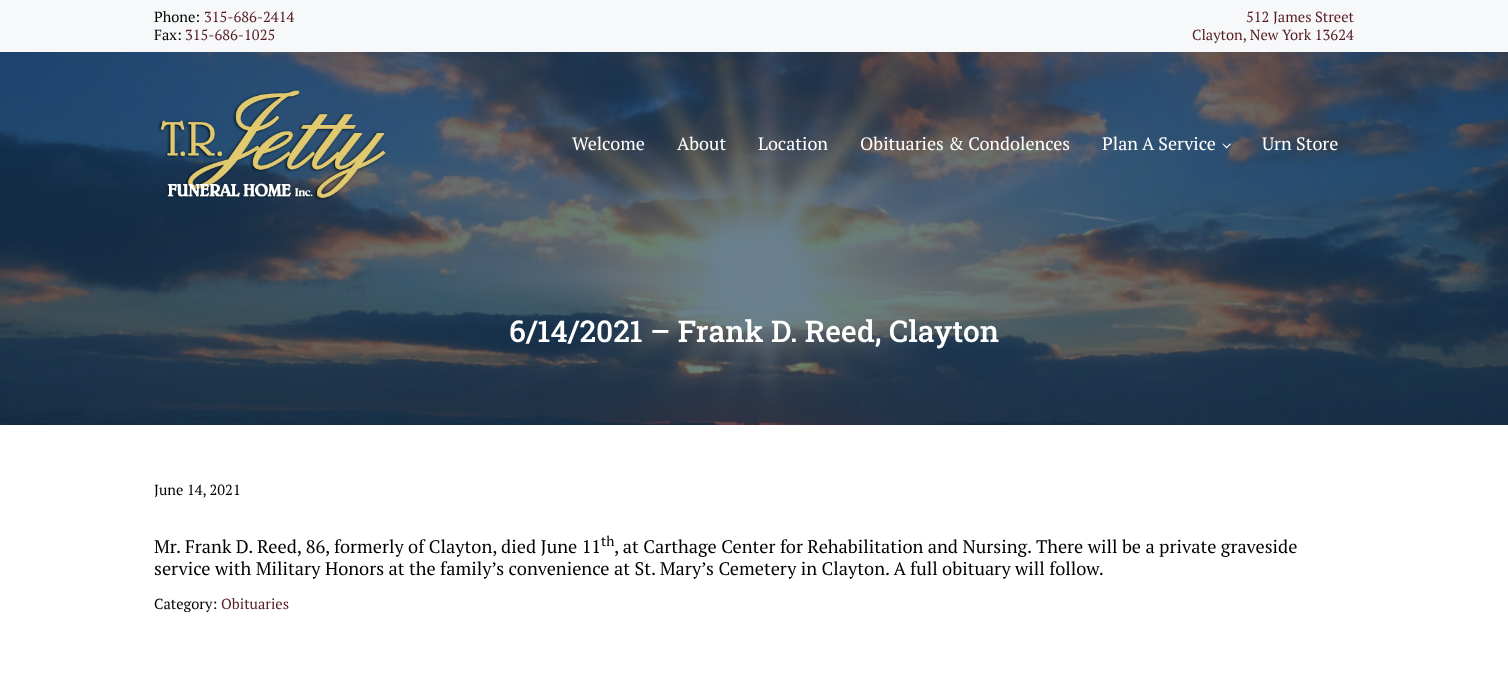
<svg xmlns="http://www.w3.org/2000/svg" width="1508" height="686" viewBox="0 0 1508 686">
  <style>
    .t1 { font: 14.6px PT Serif; fill: #000; }
    .t2 { font: 14.6px PT Serif; fill: #571c22; }
    .t3 { font: 18px PT Serif; fill: #fff; }
    .t4 { font: 500 30px Roboto Slab; fill: #fff; }
    .t5 { font: 18.25px PT Serif; fill: #000; }
    .t6 { font: 14px PT Serif; fill: #000; }
  </style>
  <rect width="100%" height="100%" fill="#fff"/>
  <rect x="0" y="0" width="1508" height="52" fill="#f6f8fa"/>
  <text x="154" y="22" class="t1">Phone:</text>
  <text x="204" y="22" class="t2">315-686-2414</text>
  <text x="154" y="40" class="t1">Fax:</text>
  <text x="185" y="40" class="t2">315-686-1025</text>
  <text x="1246" y="22" class="t2">512 James Street</text>
  <text x="1192" y="40" class="t2">Clayton, New York 13624</text>
  <image x="0" y="52" width="1508" height="373" href="images/2.png"/>
  <image x="158" y="89" width="228" height="111" href="images/1.png"/>
  <text x="572" y="150" class="t3">Welcome</text>
  <text x="677" y="150" class="t3">About</text>
  <text x="758" y="150" class="t3">Location</text>
  <text x="860" y="150" class="t3">Obituaries &amp; Condolences</text>
  <text x="1102" y="150" class="t3">Plan A Service</text>
  <path d="M1230 143.5L1231 144L1226.5 148.5L1226 147.5Z" fill="#fff"/>
  <path d="M1223 143.5L1227.5 147.5L1226.5 148.5L1222.5 144Z" fill="#fff"/>
  <text x="1262" y="150" class="t3">Urn Store</text>
  <text x="509" y="342" class="t4">6/14/2021 – Frank D. Reed, Clayton</text>
  <text x="154" y="495" class="t1">June 14, 2021</text>
  <text x="154" y="553" class="t5">Mr. Frank D. Reed, 86, formerly of Clayton, died June 11</text>
  <text x="601" y="546" class="t6">th</text>
  <text x="614" y="553" class="t5">, at Carthage Center for Rehabilitation and Nursing. There will be a private graveside</text>
  <text x="154" y="575" class="t5">service with Military Honors at the family’s convenience at St. Mary’s Cemetery in Clayton. A full obituary will follow.</text>
  <text x="154" y="609" class="t1">Category:</text>
  <text x="221" y="609" class="t2">Obituaries</text>
</svg>
